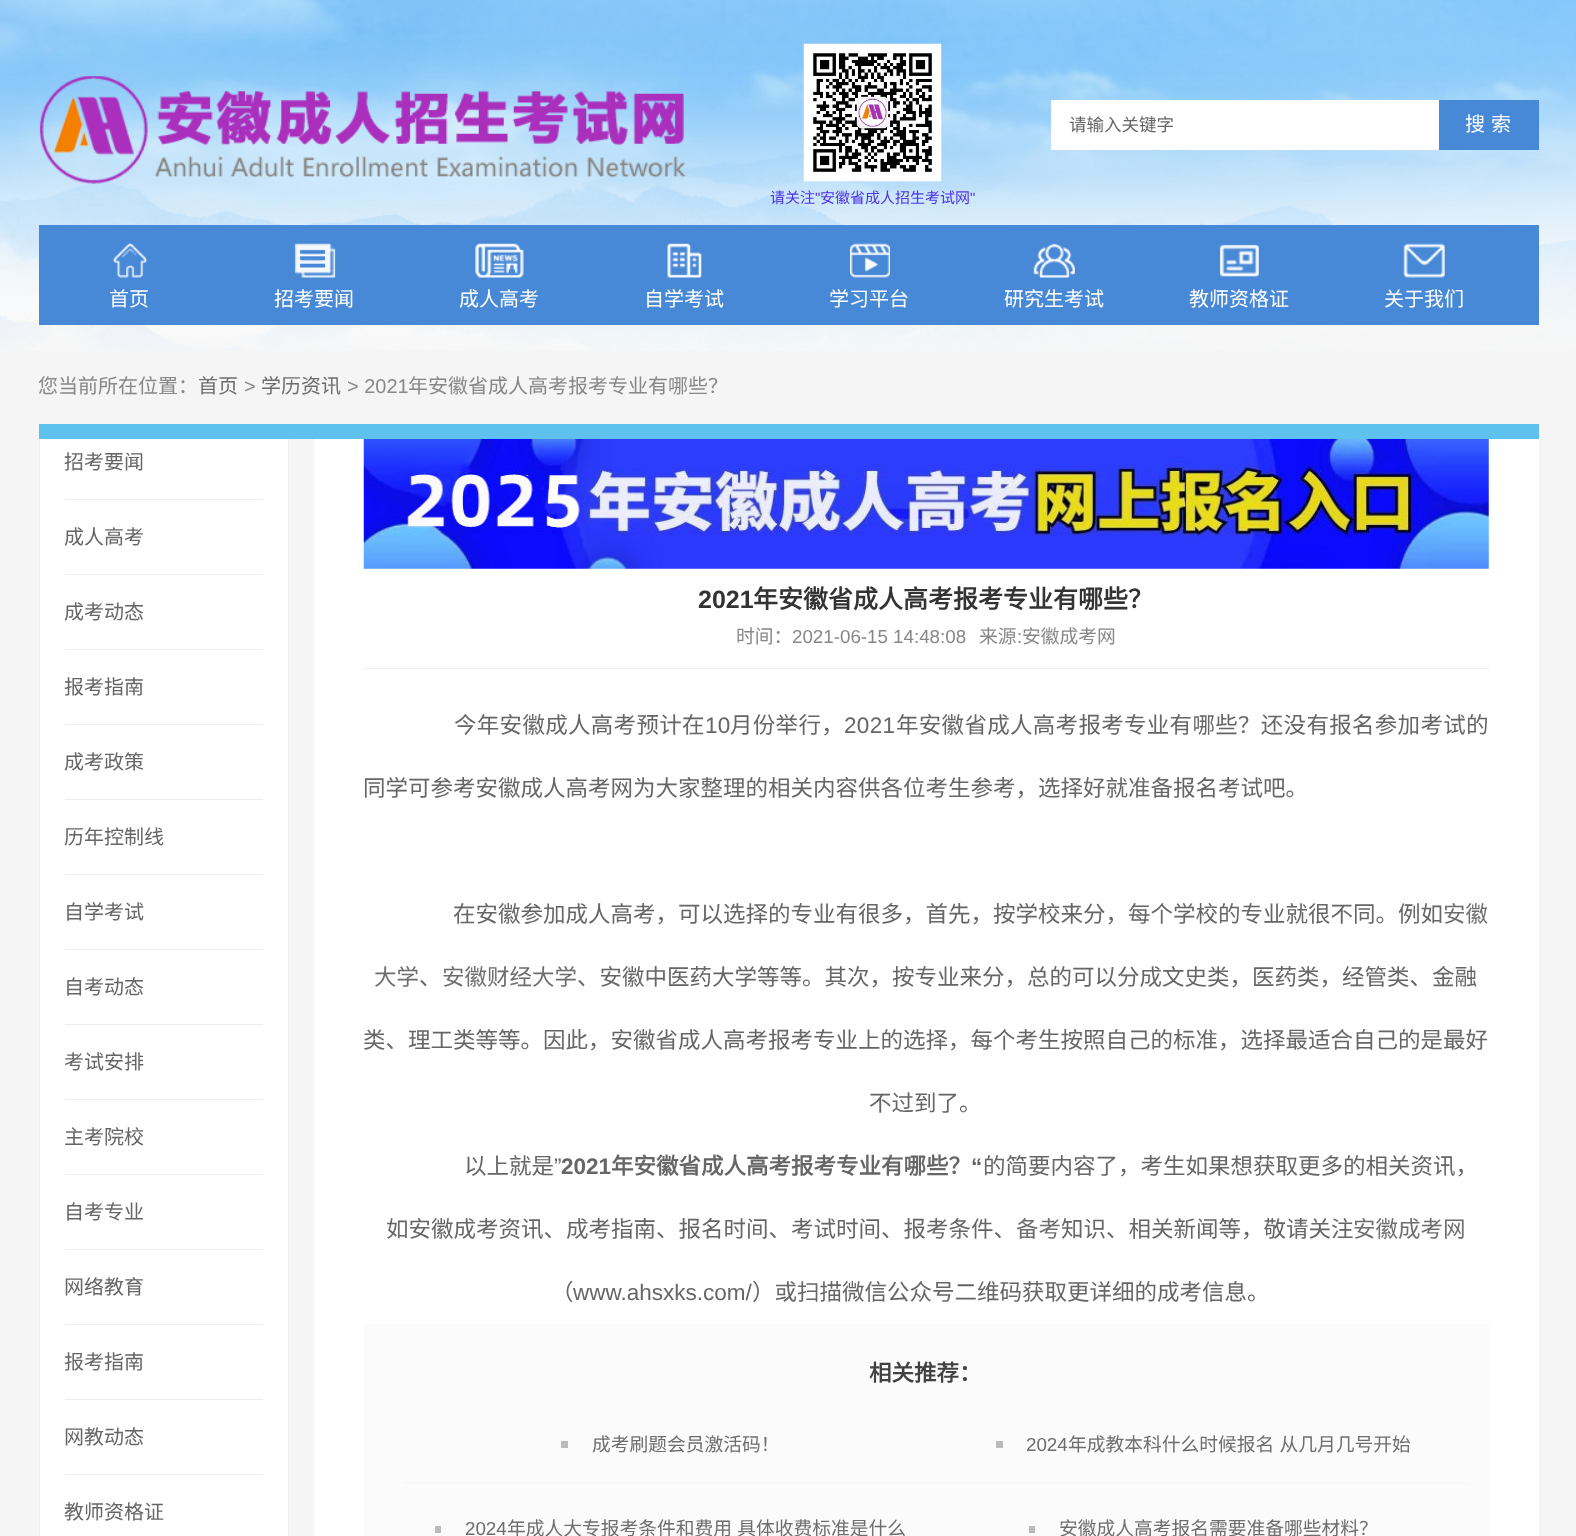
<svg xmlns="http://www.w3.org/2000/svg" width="1576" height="1536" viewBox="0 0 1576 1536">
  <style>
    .t1 { font: 17.5px Noto Sans CJK SC; fill: #666; }
    .t2 { font: 20px Noto Sans CJK SC; fill: #fff; }
    .t3 { font: 15px Noto Sans CJK SC; fill: #4c33e5; }
    .t4 { font: 15px Liberation Sans; fill: #4c33e5; }
    .t5 { font: 20px Noto Sans CJK SC; fill: #888; }
    .t6 { font: 20px Noto Sans CJK SC; fill: #6e6e6e; }
    .t7 { font: 20px Liberation Sans; fill: #888; }
    .t8 { font: 20px Noto Sans CJK SC; fill: #666; }
    .t9 { font: bold 25px Liberation Sans; fill: #333; }
    .t10 { font: bold 25px Noto Sans CJK SC; fill: #333; }
    .t11 { font: 18.75px Noto Sans CJK SC; fill: #888; }
    .t12 { font: 18.75px Liberation Sans; fill: #888; }
    .t13 { font: 22.5px Noto Sans CJK SC; letter-spacing: 0.3px; fill: #666; }
    .t14 { font: 22.5px Liberation Sans; letter-spacing: 0.3px; fill: #666; }
    .t15 { font: 22.5px Noto Sans CJK SC; fill: #666; }
    .t16 { font: 22.5px Noto Sans CJK SC; fill: #6e6e6e; }
    .t17 { font: 22.5px Liberation Sans; fill: #666; }
    .t18 { font: bold 22.5px Liberation Sans; fill: #666; }
    .t19 { font: bold 22.5px Noto Sans CJK SC; fill: #666; }
    .t20 { font: bold 22.5px Noto Sans CJK SC; fill: #414141; }
    .t21 { font: 18.75px Noto Sans CJK SC; fill: #6e6e6e; }
    .t22 { font: 18.75px Liberation Sans; fill: #6e6e6e; }
  </style>
  <rect width="100%" height="100%" fill="#f5f5f5"/>
  <image x="0" y="0" width="1576" height="351" href="images/1.png"/>
  <image x="39" y="76" width="647" height="108" href="images/2.png"/>
  <rect x="1051" y="100" width="388" height="50" fill="#fff"/>
  <text x="1069" y="131" class="t1">请输入关键字</text>
  <rect x="1439" y="100" width="100" height="50" fill="#4788d7"/>
  <text x="1465" y="131" class="t2">搜</text>
  <text x="1491" y="131" class="t2">索</text>
  <image x="803" y="43" width="139" height="139" href="images/3.png"/>
  <text x="770" y="203" class="t3">请关注</text>
  <text x="815" y="203" class="t4">"</text>
  <text x="820" y="203" class="t3">安徽省成人招生考试网</text>
  <text x="970" y="203" class="t4">"</text>
  <rect x="39" y="225" width="1500" height="100" fill="#4788d7"/>
  <image x="113" y="243" width="34" height="35" href="images/4.png"/>
  <text x="109" y="306" class="t2">首页</text>
  <image x="294" y="243" width="42" height="35" href="images/5.png"/>
  <text x="274" y="306" class="t2">招考要闻</text>
  <image x="475" y="243" width="49" height="35" href="images/6.png"/>
  <text x="459" y="306" class="t2">成人高考</text>
  <image x="667" y="243" width="35" height="35" href="images/7.png"/>
  <text x="644" y="306" class="t2">自学考试</text>
  <image x="850" y="243" width="40" height="35" href="images/8.png"/>
  <text x="829" y="306" class="t2">学习平台</text>
  <image x="1033" y="243" width="42" height="35" href="images/9.png"/>
  <text x="1004" y="306" class="t2">研究生考试</text>
  <image x="1219" y="244" width="40" height="33" href="images/10.png"/>
  <text x="1189" y="306" class="t2">教师资格证</text>
  <image x="1403" y="243" width="42" height="35" href="images/11.png"/>
  <text x="1384" y="306" class="t2">关于我们</text>
  <text x="38" y="393" class="t5">您当前所在位置：</text>
  <text x="198" y="393" class="t6">首页</text>
  <text x="244" y="393" class="t7">&gt;</text>
  <text x="261" y="393" class="t6">学历资讯</text>
  <text x="347" y="393" class="t7">&gt; 2021</text>
  <text x="408" y="393" class="t5">年安徽省成人高考报考专业有哪些？</text>
  <rect x="39.5" y="424.5" width="249" height="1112" fill="none" stroke="#ededed"/>
  <rect x="39" y="424" width="1500" height="15" fill="#5fc1ee"/>
  <rect x="40" y="439" width="248" height="1097" fill="#fff"/>
  <rect x="65" y="499" width="198" height="1" fill="#ededed"/>
  <text x="64" y="469" class="t8">招考要闻</text>
  <rect x="65" y="574" width="198" height="1" fill="#ededed"/>
  <text x="64" y="544" class="t8">成人高考</text>
  <rect x="65" y="649" width="198" height="1" fill="#ededed"/>
  <text x="64" y="619" class="t8">成考动态</text>
  <rect x="65" y="724" width="198" height="1" fill="#ededed"/>
  <text x="64" y="694" class="t8">报考指南</text>
  <rect x="65" y="799" width="198" height="1" fill="#ededed"/>
  <text x="64" y="769" class="t8">成考政策</text>
  <rect x="65" y="874" width="198" height="1" fill="#ededed"/>
  <text x="64" y="844" class="t8">历年控制线</text>
  <rect x="65" y="949" width="198" height="1" fill="#ededed"/>
  <text x="64" y="919" class="t8">自学考试</text>
  <rect x="65" y="1024" width="198" height="1" fill="#ededed"/>
  <text x="64" y="994" class="t8">自考动态</text>
  <rect x="65" y="1099" width="198" height="1" fill="#ededed"/>
  <text x="64" y="1069" class="t8">考试安排</text>
  <rect x="65" y="1174" width="198" height="1" fill="#ededed"/>
  <text x="64" y="1144" class="t8">主考院校</text>
  <rect x="65" y="1249" width="198" height="1" fill="#ededed"/>
  <text x="64" y="1219" class="t8">自考专业</text>
  <rect x="65" y="1324" width="198" height="1" fill="#ededed"/>
  <text x="64" y="1294" class="t8">网络教育</text>
  <rect x="65" y="1399" width="198" height="1" fill="#ededed"/>
  <text x="64" y="1369" class="t8">报考指南</text>
  <rect x="65" y="1474" width="198" height="1" fill="#ededed"/>
  <text x="64" y="1444" class="t8">网教动态</text>
  <text x="64" y="1519" class="t8">教师资格证</text>
  <rect x="314" y="439" width="1225" height="1097" fill="#fff"/>
  <image x="363" y="439" width="1126" height="130" href="images/12.png"/>
  <rect x="364" y="668" width="1125" height="1" fill="#ededed"/>
  <text x="698" y="608" class="t9">2021</text>
  <text x="753" y="608" class="t10">年安徽省成人高考报考专业有哪些？</text>
  <text x="736" y="643" class="t11">时间：</text>
  <text x="792" y="643" class="t12">2021-06-15 14:48:08</text>
  <text x="979" y="643" class="t11">来源</text>
  <text x="1017" y="643" class="t12">:</text>
  <text x="1022" y="643" class="t11">安徽成考网</text>
  <text x="454" y="733" class="t13">今年安徽成人高考预计在</text>
  <text x="705" y="733" class="t14">10</text>
  <text x="730" y="733" class="t13">月份举行，</text>
  <text x="844" y="733" class="t14">2021</text>
  <text x="896" y="733" class="t13">年安徽省成人高考报考专业有哪些？还没有报名参加考试的</text>
  <text x="363" y="796" class="t15">同学可参考安徽成人高考网为大家整理的相关内容供各位考生参考，选择好就准备报名考试吧。</text>
  <text x="453" y="922" class="t15">在安徽参加成人高考，可以选择的专业有很多，首先，按学校来分，每个学校的专业就很不同。例如</text>
  <text x="1443" y="922" class="t16">安徽</text>
  <text x="374" y="985" class="t16">大学</text>
  <text x="419" y="985" class="t15">、</text>
  <text x="442" y="985" class="t16">安徽财经大学</text>
  <text x="577" y="985" class="t15">、安徽中医药大学等等。其次，按专业来分，总的可以分成文史类，医药类，经管类、金融</text>
  <text x="363" y="1048" class="t15">类、理工类等等。因此，安徽省成人高考报考专业上的选择，每个考生按照自己的标准，选择最适合自己的是最好</text>
  <text x="869" y="1111" class="t15">不过到了。</text>
  <text x="464" y="1174" class="t15">以上就是</text>
  <text x="554" y="1174" class="t17">”</text>
  <text x="561" y="1174" class="t18">2021</text>
  <text x="611" y="1174" class="t19">年安徽省成人高考报考专业有哪些？</text>
  <text x="971" y="1174" class="t18">“</text>
  <text x="983" y="1174" class="t15">的简要内容了，考生如果想获取更多的相关资讯，</text>
  <text x="386" y="1237" class="t15">如安徽成考资讯、成考指南、报名时间、考试时间、报考条件、</text>
  <text x="1016" y="1237" class="t16">备考</text>
  <text x="1061" y="1237" class="t15">知识、相关新闻等，敬请关注</text>
  <text x="1353" y="1237" class="t16">安徽成考网</text>
  <text x="551" y="1300" class="t15">（</text>
  <text x="573" y="1300" class="t17">www.ahsxks.com/</text>
  <text x="752" y="1300" class="t15">）或扫描微信公众号二维码获取更详细的成考信息。</text>
  <rect x="364" y="1324" width="1125" height="212" fill="#fbfbfb"/>
  <text x="869" y="1381" class="t20">相关推荐：</text>
  <path d="M405 1483H937.5" fill="none" stroke="#eee" stroke-width="1.2" stroke-dasharray="1.25 1.25"/>
  <rect x="561" y="1441" width="7" height="7" fill="#bbb"/>
  <text x="592" y="1451" class="t21">成考刷题会员激活码！</text>
  <path d="M937.5 1483H1470" fill="none" stroke="#eee" stroke-width="1.2" stroke-dasharray="1.25 1.25"/>
  <rect x="996" y="1441" width="7" height="7" fill="#bbb"/>
  <text x="1026" y="1451" class="t22">2024</text>
  <text x="1068" y="1451" word-spacing="1" class="t21">年成教本科什么时候报名 从几月几号开始</text>
  <rect x="435" y="1526" width="6" height="7" fill="#bbb"/>
  <text x="465" y="1535" class="t22">2024</text>
  <text x="507" y="1535" word-spacing="1" class="t21">年成人大专报考条件和费用 具体收费标准是什么</text>
  <rect x="1029" y="1526" width="6" height="7" fill="#bbb"/>
  <text x="1059" y="1535" class="t21">安徽成人高考报名需要准备哪些材料？</text>
</svg>
